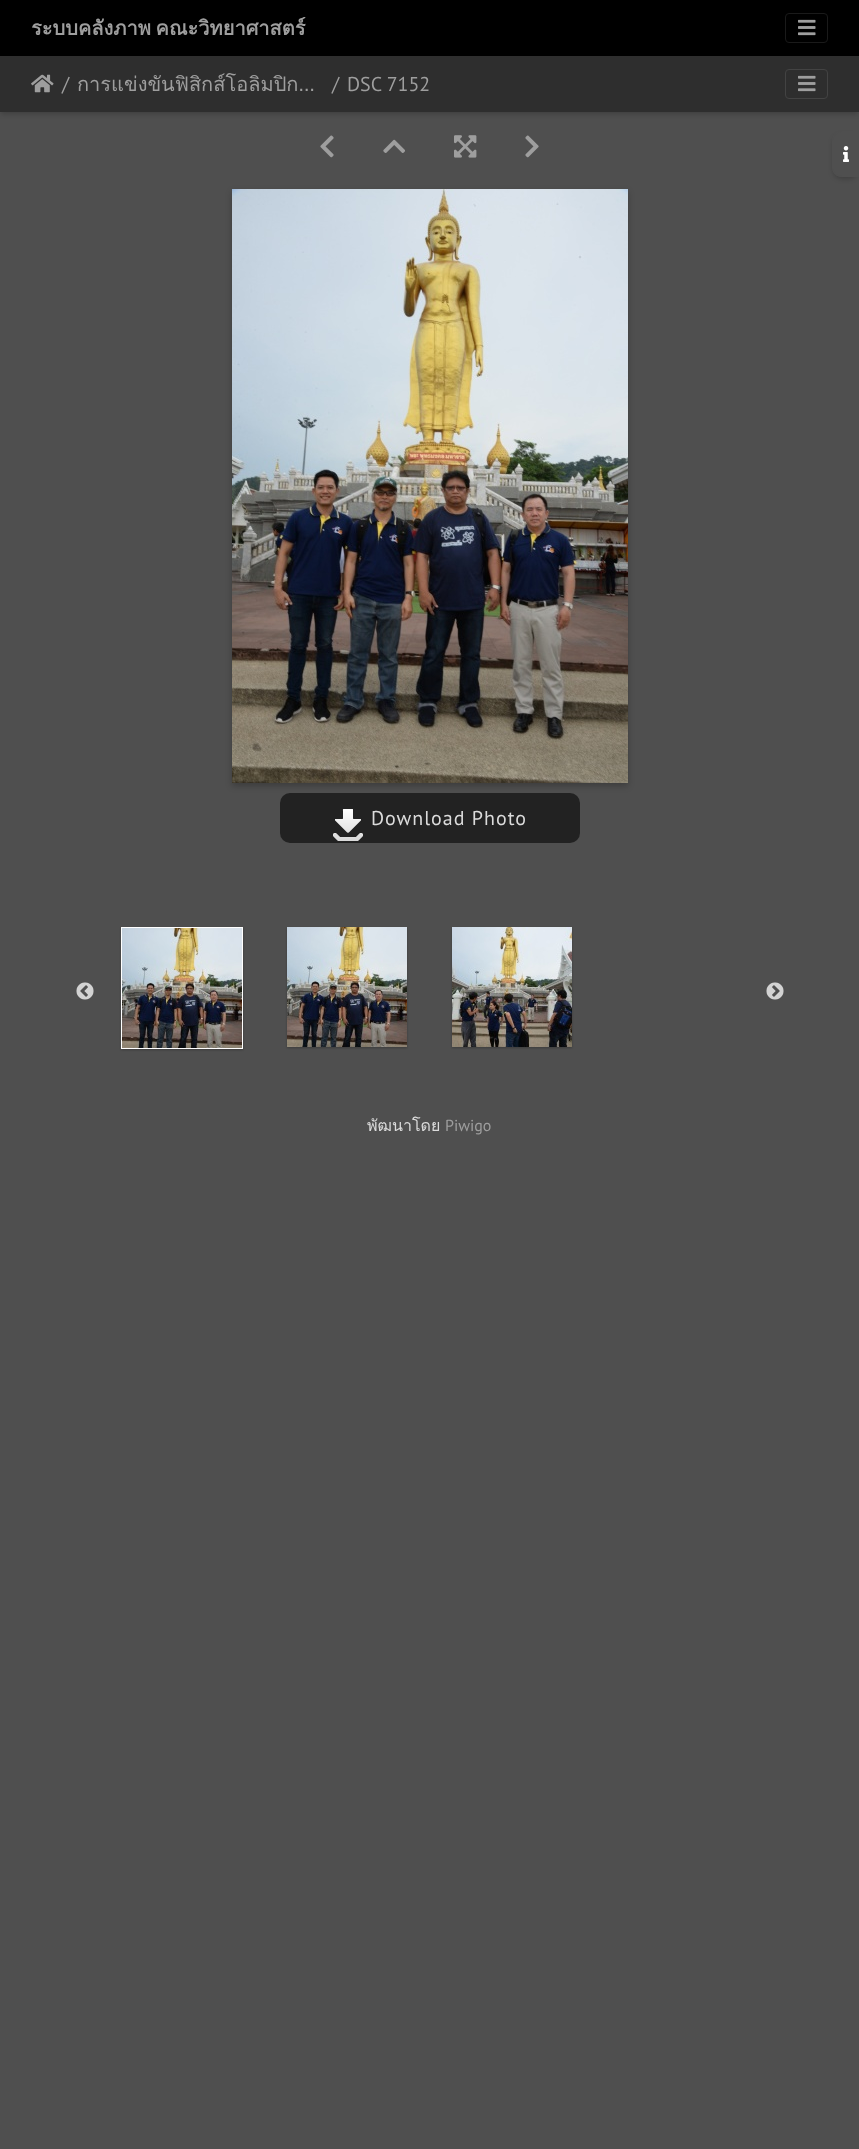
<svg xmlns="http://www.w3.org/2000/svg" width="859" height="2149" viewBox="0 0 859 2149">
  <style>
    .t1 { font: bold 20px Loma; fill: #9e9e9e; }
    .t2 { font: 20px PT Sans; fill: #9e9e9e; }
    .t3 { font: 20px Loma; fill: #9e9e9e; }
    .t4 { font: 20px PT Sans; letter-spacing: 1px; fill: #dbdbdb; }
    .t5 { font: 16px Loma; fill: #dbdbdb; }
    .t6 { font: 16px PT Sans; fill: #9e9e9e; }
  </style>
  <rect width="100%" height="100%" fill="#4f4f4f"/>
  <rect x="1" y="60" width="857" height="54" fill="#00000033" filter="blur(2.5px)"/>
  <rect x="0" y="0" width="859" height="56" fill="#000"/>
  <text x="31" y="35" word-spacing="-2" class="t1">ระบบคลังภาพ คณะวิทยาศาสตร์</text>
  <rect x="785.5" y="13.5" width="42" height="29" rx="3.5" fill="none" stroke="#1a1a1a"/>
  <image x="798" y="19" width="18" height="17" href="images/1.png"/>
  <rect x="0" y="56" width="859" height="56" fill="#2e2e2e"/>
  <image x="31" y="74" width="23" height="19" href="images/2.png"/>
  <text x="62" y="91" class="t2">/</text>
  <text x="77" y="91" class="t3">การแข่งขันฟิสิกส์โอลิมปิก…</text>
  <text x="332" y="91" class="t2">/</text>
  <text x="347" y="91" class="t2">DSC 7152</text>
  <rect x="785.5" y="69.5" width="42" height="29" rx="3.5" fill="none" stroke="#434343"/>
  <image x="798" y="75" width="18" height="17" href="images/3.png"/>
  <image x="320" y="135" width="14" height="23" href="images/4.png"/>
  <image x="383" y="139" width="22" height="14" href="images/5.png"/>
  <image x="454" y="135" width="23" height="23" href="images/6.png"/>
  <image x="525" y="135" width="14" height="23" href="images/7.png"/>
  <rect x="833" y="135" width="25" height="44" rx="9" fill="#00000033" filter="blur(2.5px)"/>
  <path d="M842 131H859V177H842C836.5 177 832 172.5 832 167V141C832 135.5 836.5 131 842 131Z" fill="#4f4f4f"/>
  <path d="M842 131H859V177H842C836 177 832 173 832 167V141C832 135 836 131 842 131ZM842 132H859V176H842C837 176 833 172 833 167V141C833 136 837 132 842 132Z" fill="#4f4f4f" fill-rule="evenodd"/>
  <image x="843" y="146" width="6" height="16" href="images/8.png"/>
  <rect x="280" y="793" width="300" height="50" rx="10" fill="#222"/>
  <rect x="232" y="192" width="396" height="594" fill="#0000003b" filter="blur(3px)"/>
  <image x="232" y="189" width="396" height="594" href="images/9.png"/>
  <image x="333" y="809" width="30" height="32" href="images/10.png"/>
  <text x="371" y="825" class="t4">Download Photo</text>
  <image x="76" y="982" width="18" height="18" href="images/11.png"/>
  <rect x="121" y="928" width="122" height="122" fill="#0000003d" filter="blur(1px)"/>
  <rect x="121.5" y="927.5" width="121" height="121" fill="none" stroke="#fff"/>
  <image x="122" y="928" width="120" height="120" href="images/12.png"/>
  <rect x="287" y="928" width="120" height="120" fill="#0000003d" filter="blur(1px)"/>
  <image x="287" y="927" width="120" height="120" href="images/13.png"/>
  <rect x="452" y="928" width="120" height="120" fill="#0000003d" filter="blur(1px)"/>
  <image x="452" y="927" width="120" height="120" href="images/14.png"/>
  <image x="766" y="982" width="18" height="18" href="images/15.png"/>
  <text x="367" y="1131" class="t5">พัฒนาโดย</text>
  <text x="445" y="1131" class="t6">Piwigo</text>
</svg>
